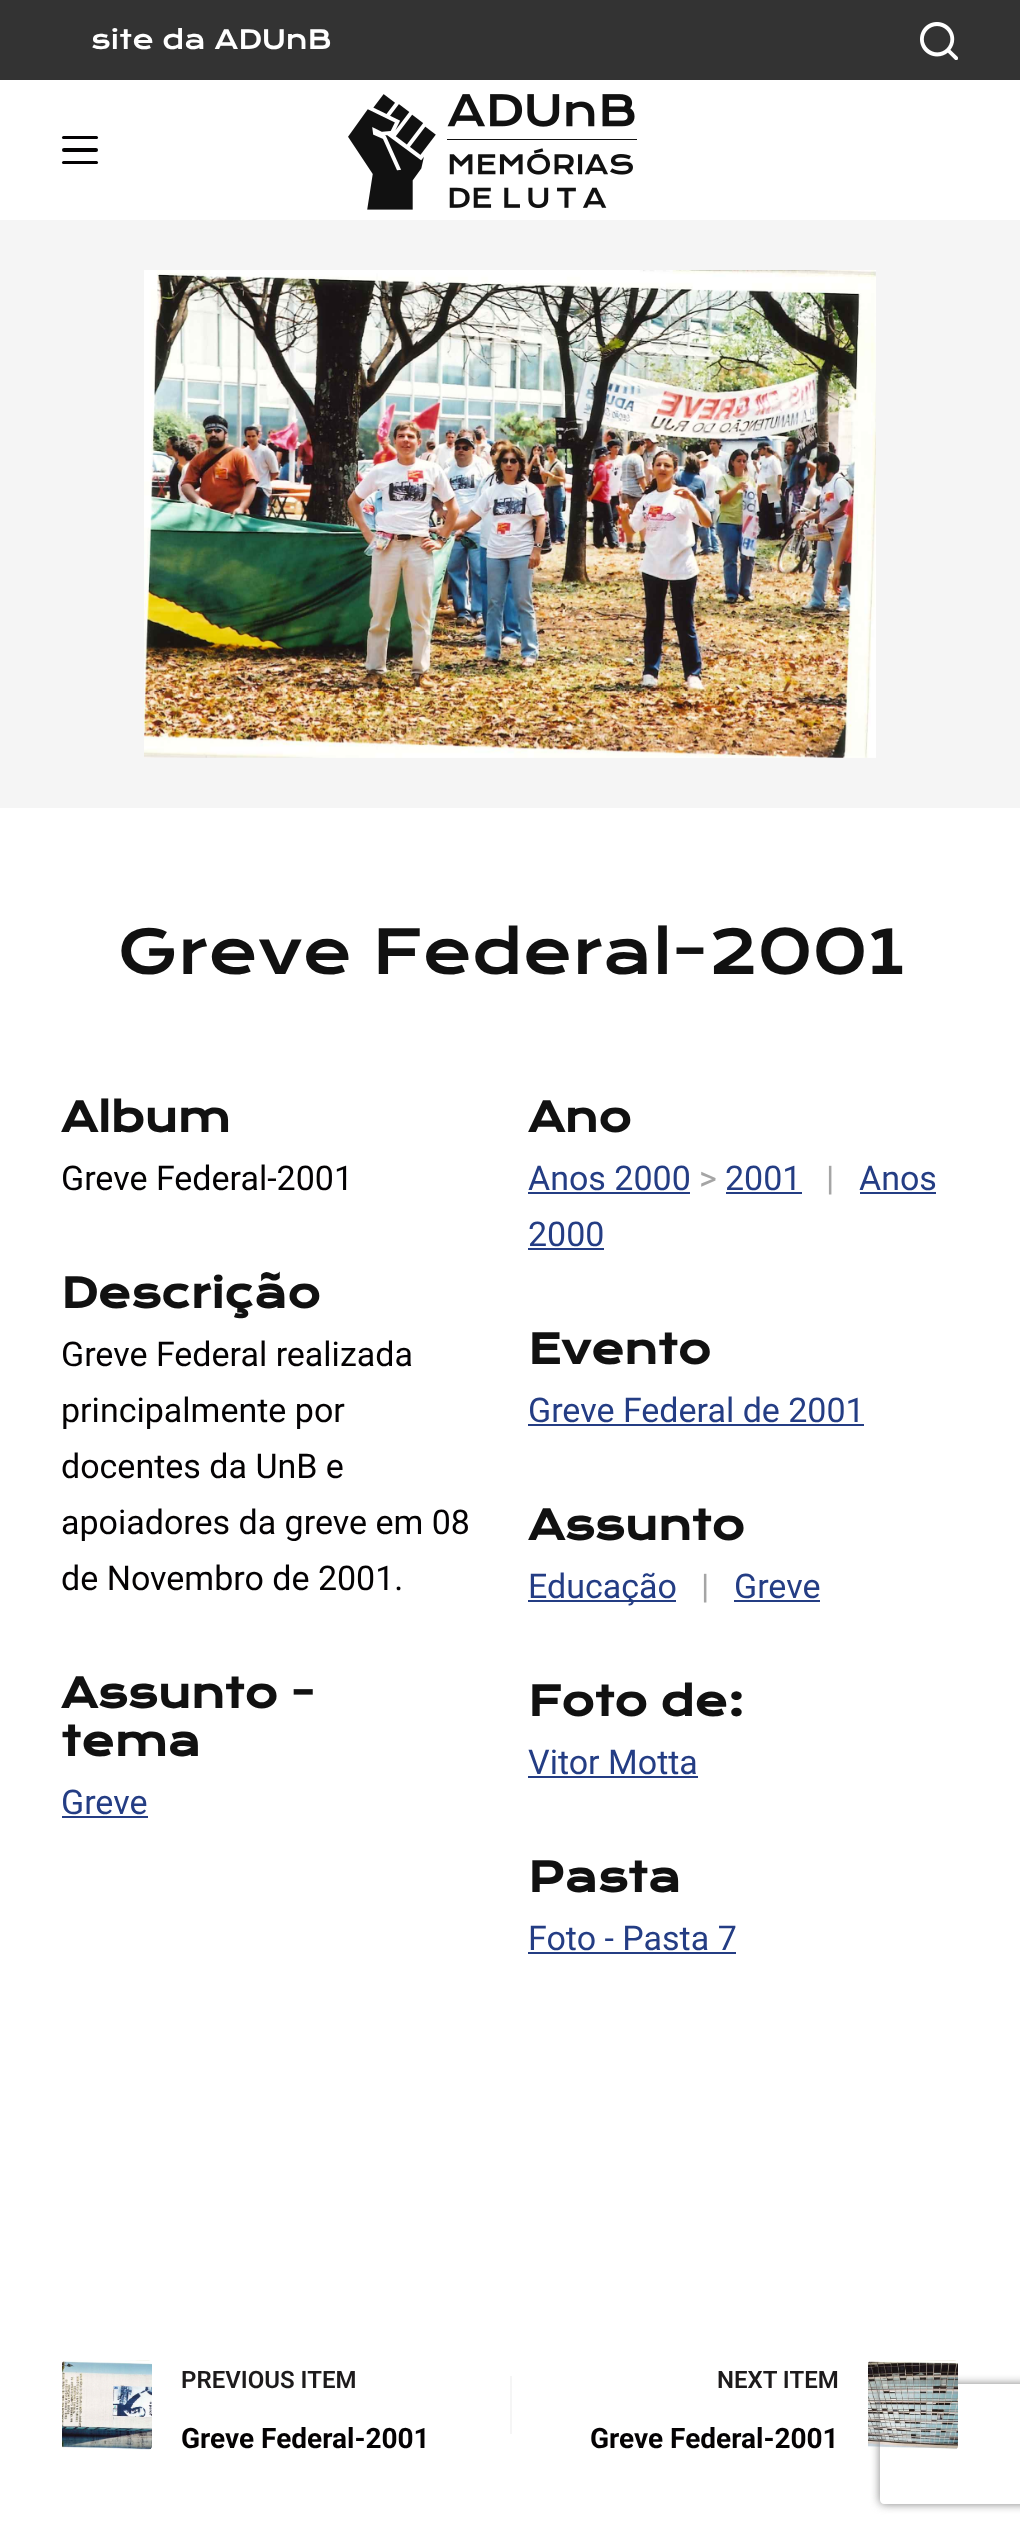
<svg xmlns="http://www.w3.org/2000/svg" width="1020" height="2532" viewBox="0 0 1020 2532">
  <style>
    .t1 { font: 26px Krona One; fill: #fff; }
    .t2 { font: 60px Krona One; fill: #111; }
    .t3 { font: bold 40px Krona One; fill: #111; }
    .t4 { font: 34px Roboto; fill: #040203; }
    .t5 { font: 34px Roboto; fill: #243d84; }
    .t6 { font: 34px Roboto; fill: #a5a5a5; }
    .t7 { font: 600 24px Roboto; fill: #1d1b1c; }
    .t8 { font: bold 28px Roboto; fill: #040203; }
  </style>
  <defs>
    <clipPath id="clip1"><path d="M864 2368H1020V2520H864ZM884 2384H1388C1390 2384 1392 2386 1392 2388V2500C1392 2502 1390 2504 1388 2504H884C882 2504 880 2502 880 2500V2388C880 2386 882 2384 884 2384Z" clip-rule="evenodd"/></clipPath>
  </defs>
  <rect width="100%" height="100%" fill="#fff"/>
  <rect x="0" y="0" width="1020" height="80" fill="#333"/>
  <text x="91" y="49" class="t1">site da ADUnB</text>
  <image x="920" y="22" width="38" height="38" href="images/1.png"/>
  <rect x="62" y="136" width="36" height="3" rx="1.5" fill="#040203"/>
  <rect x="62" y="148" width="36" height="4" rx="2" fill="#040203"/>
  <rect x="62" y="161" width="36" height="3" rx="1.5" fill="#040203"/>
  <image x="348" y="94" width="289" height="116" href="images/2.png"/>
  <rect x="0" y="220" width="1020" height="588" fill="#f5f5f5"/>
  <image x="144" y="270" width="732" height="488" href="images/3.png"/>
  <text x="118" y="974" class="t2">Greve Federal-2001</text>
  <text x="61" y="1132" class="t3">Album</text>
  <text x="61" y="1190" class="t4">Greve Federal-2001</text>
  <text x="528" y="1132" class="t3">Ano</text>
  <text x="528" y="1190" class="t5">Anos 2000</text>
  <rect x="528" y="1192" width="162" height="2" fill="#243d84"/>
  <text x="699" y="1190" class="t6">&gt;</text>
  <text x="725" y="1190" class="t5">2001</text>
  <rect x="726" y="1192" width="76" height="2" fill="#243d84"/>
  <text x="826" y="1190" class="t6">|</text>
  <text x="859" y="1190" class="t5">Anos</text>
  <rect x="860" y="1192" width="76" height="2" fill="#243d84"/>
  <text x="528" y="1246" class="t5">2000</text>
  <rect x="528" y="1248" width="76" height="2" fill="#243d84"/>
  <text x="61" y="1308" class="t3">Descrição</text>
  <text x="61" y="1366" class="t4">Greve Federal realizada</text>
  <text x="61" y="1422" class="t4">principalmente por</text>
  <text x="61" y="1478" class="t4">docentes da UnB e</text>
  <text x="61" y="1534" class="t4">apoiadores da greve em 08</text>
  <text x="61" y="1590" class="t4">de Novembro de 2001.</text>
  <text x="528" y="1364" class="t3">Evento</text>
  <text x="528" y="1422" class="t5">Greve Federal de 2001</text>
  <rect x="528" y="1424" width="336" height="2" fill="#243d84"/>
  <text x="528" y="1540" class="t3">Assunto</text>
  <rect x="528" y="1600" width="148" height="2" fill="#243d84"/>
  <text x="528" y="1598" class="t5">Educação</text>
  <text x="701" y="1598" class="t6">|</text>
  <text x="734" y="1598" class="t5">Greve</text>
  <rect x="734" y="1600" width="86" height="2" fill="#243d84"/>
  <text x="61" y="1708" class="t3">Assunto -</text>
  <text x="61" y="1756" class="t3">tema</text>
  <text x="61" y="1814" class="t5">Greve</text>
  <rect x="62" y="1816" width="86" height="2" fill="#243d84"/>
  <text x="528" y="1716" class="t3">Foto de:</text>
  <text x="528" y="1774" class="t5">Vitor Motta</text>
  <rect x="528" y="1776" width="170" height="2" fill="#243d84"/>
  <text x="528" y="1892" class="t3">Pasta</text>
  <text x="528" y="1950" class="t5">Foto - Pasta 7</text>
  <rect x="528" y="1952" width="208" height="2" fill="#243d84"/>
  <image x="62" y="2360" width="90" height="90" href="images/4.png"/>
  <text x="181" y="2388" class="t7">PREVIOUS ITEM</text>
  <text x="181" y="2448" class="t8">Greve Federal-2001</text>
  <rect x="510" y="2376" width="2" height="58" fill="#f5f5f5"/>
  <text x="717" y="2388" class="t7">NEXT ITEM</text>
  <text x="590" y="2448" class="t8">Greve Federal-2001</text>
  <image x="868" y="2360" width="90" height="90" href="images/5.png"/>
  <g clip-path="url(#clip1)">
    <rect x="880" y="2384" width="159" height="120" rx="4" fill="#808080" filter="blur(5px)"/>
  </g>
</svg>
